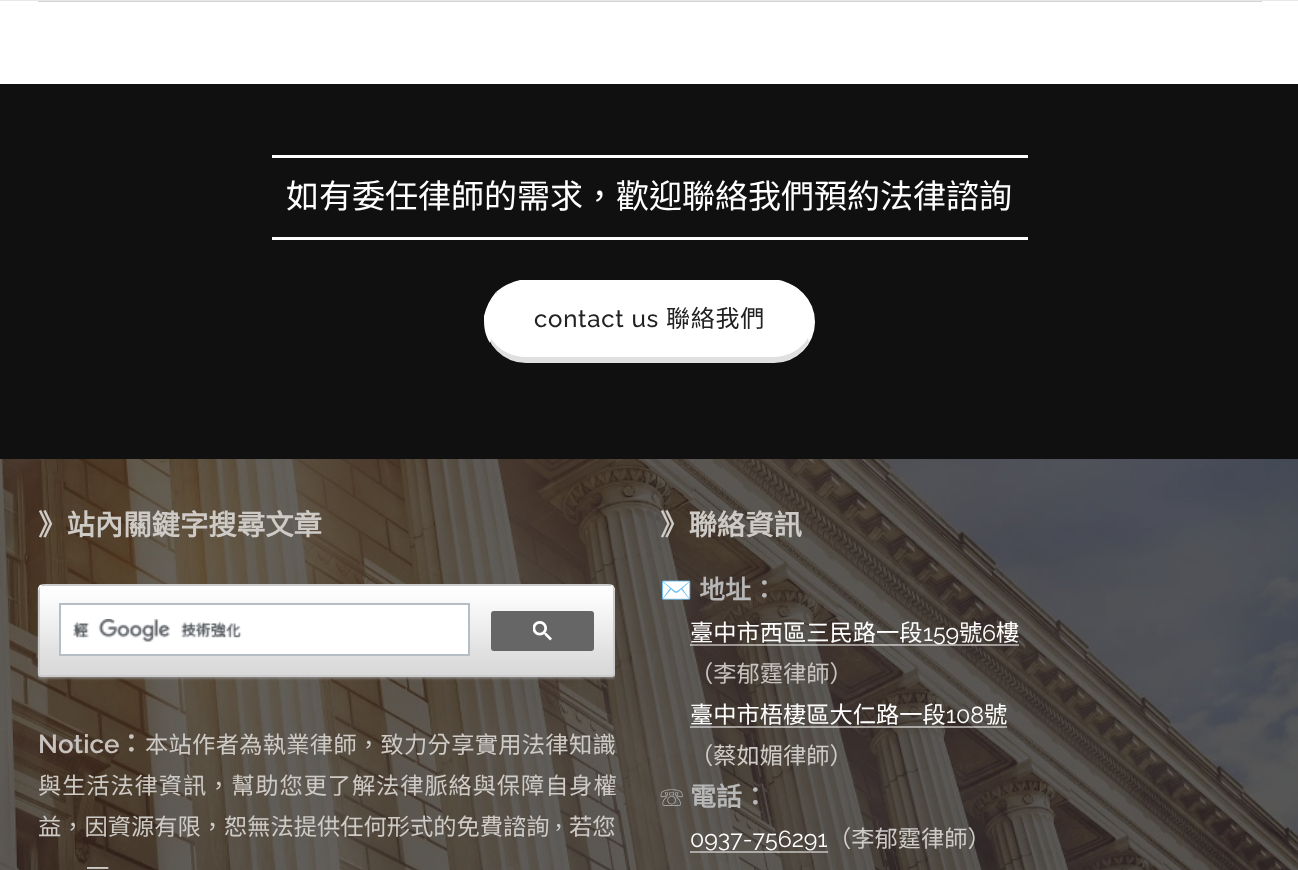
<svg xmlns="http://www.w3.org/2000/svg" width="1298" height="870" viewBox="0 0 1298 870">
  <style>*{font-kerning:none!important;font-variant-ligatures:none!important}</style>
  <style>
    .t1 { font: 33px Noto Sans CJK TC; fill: #fff; }
    .t2 { font: 500 24px Raleway; letter-spacing: 0.75px; fill: #222; }
    .t3 { font: 24px Noto Sans CJK TC; letter-spacing: 0.75px; fill: #222; }
    .t4 { font: bold 28.4px Noto Sans CJK TC; fill: #cecac6; }
    .t5 { font: 600 26px Raleway; fill: #c8c3bf; }
    .t6 { font: bold 26px Noto Sans CJK TC; fill: #c8c3bf; }
    .t7 { font: 23.25px Noto Sans CJK TC; letter-spacing: 0.3px; fill: #cecac6; }
    .t8 { font: 23.25px Noto Sans CJK TC; letter-spacing: 0.9px; fill: #cecac6; }
    .t9 { font: 23.25px Noto Sans CJK TC; fill: #cecac6; }
    .t10 { font: 21px Noto Sans CJK TC; fill: #cececd; }
    .t11 { font: 26px Noto Color Emoji; fill: #b7b7b7; }
    .t12 { font: bold 26px Noto Sans CJK TC; fill: #b7b7b7; }
    .t13 { font: 23.25px Noto Sans CJK TC; fill: #fff; }
    .t14 { font: 23.25px Raleway; fill: #fff; }
    .t15 { font: 23.25px Noto Sans CJK TC; fill: #c8c3bf; }
    .t16 { font: 23.25px Noto Sans CJK TC; fill: #b7b7b7; }
  </style>
  <defs>
    <clipPath id="clip1"><rect x="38" y="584" width="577" height="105" rx="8"/></clipPath>
  </defs>
  <rect width="100%" height="100%" fill="#fff"/>
  <rect x="0" y="0" width="1298" height="1" fill="#e8e8e8"/>
  <rect x="38" y="1" width="1224" height="1" fill="#d4d4d4"/>
  <rect x="0" y="84" width="1298" height="375" fill="#101010"/>
  <rect x="272" y="155" width="756" height="3" fill="#fff"/>
  <rect x="272" y="237" width="756" height="3" fill="#fff"/>
  <text x="286" y="208" class="t1">如有委任律師的需求，歡迎聯絡我們預約法律諮詢</text>
  <rect x="485" y="281" width="330" height="82" rx="41" fill="#fff"/>
  <path d="M526 282C515 282 505 286 498 294L496 292C503 286 511 282 520 280H779C788 282 796 286 802 293L801 294C794 286 784 282 773 282Z" fill="#fff"/>
  <path d="M802 293C815 306 818 326 809 342L808 338C817 324 813 305 801 294Z" fill="#fff"/>
  <path d="M526 363H773C789 363 802 354 809 342L808 338C802 349 788 357 773 357H526C511 357 497 349 491 338L490 343C497 355 511 363 526 363Z" fill="#0000001f"/>
  <path d="M484 316C486 307 490 299 496 292L498 294C486 305 482 324 491 338L490 343C484 333 484 326 484 316Z" fill="#fff"/>
  <text x="534" y="327" class="t2">contact us</text>
  <text x="666" y="327" class="t3">聯絡我們</text>
  <image x="0" y="459" width="1298" height="411" href="images/1.png"/>
  <text x="38" y="535" class="t4">》站內關鍵字搜尋文章</text>
  <g clip-path="url(#clip1)">
    <rect x="38" y="585" width="577" height="93" rx="3" fill="#999" filter="blur(1.5px)"/>
  </g>
  <image x="37" y="584" width="578" height="92" href="images/2.png"/>
  <path d="M38 592V674C38 676 39 677 41 677H612C614 677 615 676 615 674V592C615 590 614 588 613 587V674L612 675H41L40 674V587C39 588 38 590 38 592ZM41 586H612C611 585 609 584 607 584H46C44 584 42 585 41 586Z" fill="#ccc" fill-rule="evenodd"/>
  <rect x="60" y="604" width="409" height="51" fill="#fff" stroke="#b6bec5" stroke-width="2"/>
  <image x="73" y="619" width="169" height="23" href="images/3.png"/>
  <rect x="492" y="612" width="101" height="38" rx="2" fill="#666" stroke="#666" stroke-width="2"/>
  <image x="533" y="621" width="19" height="20" href="images/4.png"/>
  <text x="38" y="753" class="t5">Notice</text>
  <text x="118" y="753" class="t6">：</text>
  <text x="145" y="753" class="t7">本站作者為執業律師，致力分享實用法律知識</text>
  <text x="38" y="794" class="t8">與生活法律資訊，幫助您更了解法律脈絡與保障自身權</text>
  <text x="38" y="835" class="t9">益，因資源有限，恕無法提供任何形式的免費諮詢</text>
  <text x="548" y="835" class="t10">，</text>
  <text x="569" y="835" class="t9">若您</text>
  <text x="86" y="877" class="t8">一</text>
  <text x="660" y="535" class="t4">》聯絡資訊</text>
  <text x="660" y="599" class="t11">✉</text>
  <text x="699" y="599" class="t12">地址：</text>
  <text x="690" y="641" class="t13">臺中市西區三民路一段</text>
  <rect x="690" y="644" width="329" height="2" fill="#ffffff80"/>
  <text x="923" y="641" class="t14">159</text>
  <text x="959" y="641" class="t13">號</text>
  <text x="982" y="641" class="t14">6</text>
  <text x="996" y="641" class="t13">樓</text>
  <text x="690" y="682" class="t15">（李郁霆律師）</text>
  <text x="690" y="723" class="t13">臺中市梧棲區大仁路一段</text>
  <text x="946" y="723" class="t14">108</text>
  <rect x="690" y="726" width="317" height="2" fill="#ffffff80"/>
  <text x="984" y="723" class="t13">號</text>
  <text x="690" y="764" class="t9">（蔡如媚律師）</text>
  <text x="660" y="806" class="t16">☏</text>
  <text x="690" y="806" class="t12">電話：</text>
  <text x="690" y="847" class="t14">0937-756291</text>
  <rect x="690" y="851" width="138" height="2" fill="#ffffff80"/>
  <text x="828" y="847" class="t9">（李郁霆律師）</text>
</svg>
